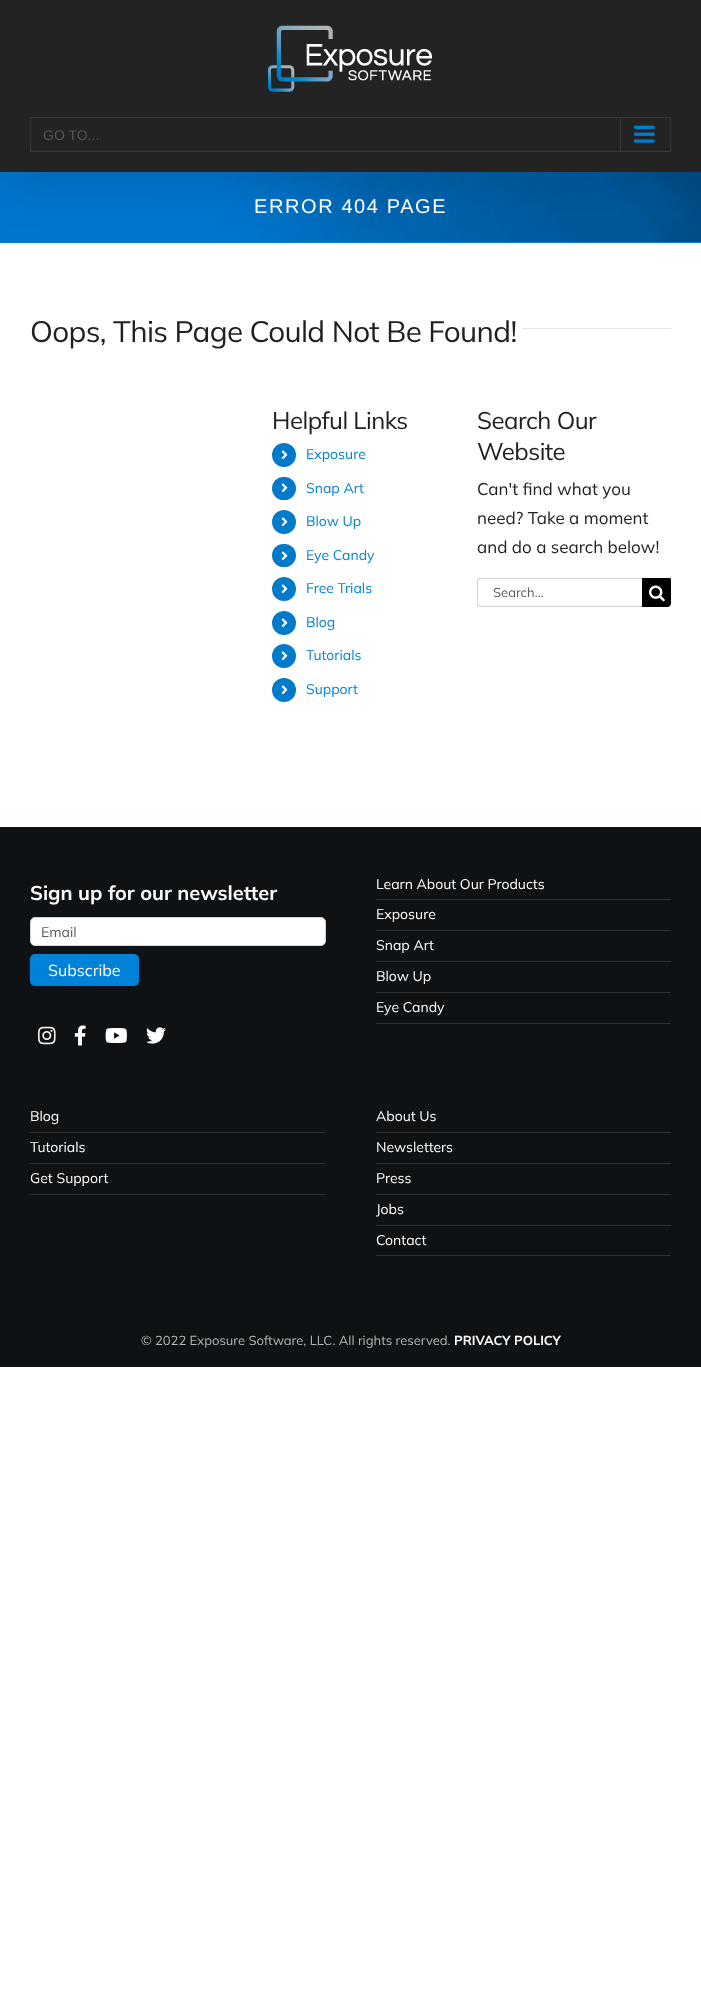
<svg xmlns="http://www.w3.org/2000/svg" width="701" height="2011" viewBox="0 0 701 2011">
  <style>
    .t1 { font: 14px Liberation Sans; fill: #555; }
    .t2 { font: 20px Liberation Sans; letter-spacing: 1.6px; fill: #fff; }
    .t3 { font: 29.6px Mulish; letter-spacing: -0.6px; fill: #202020; }
    .t4 { font: 24px Mulish; letter-spacing: -0.5px; fill: #202020; }
    .t5 { font: 14px Mulish; fill: #0082d8; }
    .t6 { font: 17px Mulish; fill: #202020; }
    .t7 { font: 13px Mulish; fill: #5b5b5b; }
    .t8 { font: bold 20px Mulish; fill: #fff; }
    .t9 { font: 14px Mulish; fill: #5b5b5b; }
    .t10 { font: 16px Mulish; fill: #fff; }
    .t11 { font: 14px Mulish; fill: #fff; }
    .t12 { font: 13px Mulish; fill: #b5b6b3; }
    .t13 { font: bold 13px Mulish; fill: #fff; }
  </style>
  <defs>
    <clipPath id="clip1"><rect x="477" y="577" width="194" height="30" rx="3"/></clipPath>
  </defs>
  <rect width="100%" height="100%" fill="#fff"/>
  <image x="0" y="172" width="701" height="70" href="images/3.png"/>
  <rect x="0" y="242" width="701" height="1" fill="#0082d8"/>
  <rect x="2" y="12" width="697" height="168" fill="#00000024" filter="blur(25px)"/>
  <rect x="0" y="0" width="701" height="172" fill="#232323"/>
  <image x="268" y="25" width="164" height="67" href="images/1.png"/>
  <rect x="30.5" y="117.5" width="640" height="34" fill="none" stroke="#383838"/>
  <text x="43" y="140" class="t1">GO TO...</text>
  <rect x="620" y="118" width="1" height="33" fill="#383838"/>
  <image x="634" y="125" width="21" height="18" href="images/2.png"/>
  <text x="254" y="213" class="t2">ERROR 404 PAGE</text>
  <text x="30" y="342" class="t3">Oops, This Page Could Not Be Found!</text>
  <rect x="522" y="328" width="149" height="1" fill="#e5e5e5"/>
  <text x="272" y="429" class="t4">Helpful Links</text>
  <circle cx="284" cy="455" r="12" fill="#007ac9"/>
  <image x="281" y="450" width="7" height="10" href="images/4.png"/>
  <text x="306" y="459" class="t5">Exposure</text>
  <rect x="272" y="477" width="24" height="23" rx="11.5" fill="#007ac9"/>
  <image x="281" y="483" width="7" height="10" href="images/4.png"/>
  <text x="306" y="493" class="t5">Snap Art</text>
  <circle cx="284" cy="522" r="12" fill="#007ac9"/>
  <image x="281" y="517" width="7" height="10" href="images/4.png"/>
  <text x="306" y="526" class="t5">Blow Up</text>
  <rect x="272" y="544" width="24" height="23" rx="11.5" fill="#007ac9"/>
  <image x="281" y="551" width="7" height="10" href="images/4.png"/>
  <text x="306" y="560" class="t5">Eye Candy</text>
  <circle cx="284" cy="589" r="12" fill="#007ac9"/>
  <image x="281" y="584" width="7" height="10" href="images/4.png"/>
  <text x="306" y="593" class="t5">Free Trials</text>
  <circle cx="284" cy="623" r="12" fill="#007ac9"/>
  <image x="281" y="618" width="7" height="10" href="images/4.png"/>
  <text x="306" y="627" class="t5">Blog</text>
  <circle cx="284" cy="656" r="12" fill="#007ac9"/>
  <image x="281" y="651" width="7" height="10" href="images/4.png"/>
  <text x="306" y="660" class="t5">Tutorials</text>
  <circle cx="284" cy="690" r="12" fill="#007ac9"/>
  <image x="281" y="685" width="7" height="10" href="images/4.png"/>
  <text x="306" y="694" class="t5">Support</text>
  <text x="477" y="429" class="t4">Search Our</text>
  <text x="477" y="460" class="t4">Website</text>
  <text x="477" y="495" class="t6">Can't find what you</text>
  <text x="477" y="524" class="t6">need? Take a moment</text>
  <text x="477" y="553" class="t6">and do a search below!</text>
  <path d="M480 578C478 578 477 579 477 581V604C477 606 478 607 480 607H642V606H480C479 606 478 605 478 604V581C478 580 479 579 480 579H642V578Z" fill="#d2d2d2"/>
  <text x="493" y="597" class="t7">Search...</text>
  <g clip-path="url(#clip1)">
    <path d="M642 578H671V604C671 605.5 669.5 607 668 607H642Z" fill="#000"/>
  </g>
  <image x="649" y="585" width="16" height="17" href="images/5.png"/>
  <rect x="0" y="827" width="701" height="540" fill="#0f1215"/>
  <text x="30" y="900" class="t8">Sign up for our newsletter</text>
  <rect x="30.5" y="917.5" width="295" height="28" rx="4.5" fill="#fff" stroke="#d2d2d2"/>
  <text x="41" y="937" class="t9">Email</text>
  <rect x="30" y="954" width="109" height="32" rx="5" fill="#0082d8"/>
  <text x="48" y="976" class="t10">Subscribe</text>
  <image x="38" y="1026" width="18" height="19" href="images/6.png"/>
  <image x="74" y="1025" width="12" height="21" href="images/7.png"/>
  <image x="105" y="1028" width="22" height="15" href="images/8.png"/>
  <image x="146" y="1027" width="20" height="17" href="images/9.png"/>
  <rect x="376" y="899" width="295" height="1" fill="#2f2e2e"/>
  <text x="376" y="889" class="t11">Learn About Our Products</text>
  <rect x="376" y="930" width="295" height="1" fill="#2f2e2e"/>
  <text x="376" y="919" class="t11">Exposure</text>
  <rect x="376" y="961" width="295" height="1" fill="#2f2e2e"/>
  <text x="376" y="950" class="t11">Snap Art</text>
  <rect x="376" y="992" width="295" height="1" fill="#2f2e2e"/>
  <text x="376" y="981" class="t11">Blow Up</text>
  <rect x="376" y="1023" width="295" height="1" fill="#2f2e2e"/>
  <text x="376" y="1012" class="t11">Eye Candy</text>
  <rect x="30" y="1132" width="296" height="1" fill="#2f2e2e"/>
  <text x="30" y="1121" class="t11">Blog</text>
  <rect x="30" y="1163" width="296" height="1" fill="#2f2e2e"/>
  <text x="30" y="1152" class="t11">Tutorials</text>
  <rect x="30" y="1194" width="296" height="1" fill="#2f2e2e"/>
  <text x="30" y="1183" class="t11">Get Support</text>
  <rect x="376" y="1132" width="295" height="1" fill="#2f2e2e"/>
  <text x="376" y="1121" class="t11">About Us</text>
  <rect x="376" y="1163" width="295" height="1" fill="#2f2e2e"/>
  <text x="376" y="1152" class="t11">Newsletters</text>
  <rect x="376" y="1194" width="295" height="1" fill="#2f2e2e"/>
  <text x="376" y="1183" class="t11">Press</text>
  <rect x="376" y="1225" width="295" height="1" fill="#2f2e2e"/>
  <text x="376" y="1214" class="t11">Jobs</text>
  <rect x="376" y="1255" width="295" height="1" fill="#2f2e2e"/>
  <text x="376" y="1245" class="t11">Contact</text>
  <text x="141" y="1345" class="t12">© 2022 Exposure Software, LLC. All rights reserved.</text>
  <text x="454" y="1345" class="t13">PRIVACY POLICY</text>
</svg>
